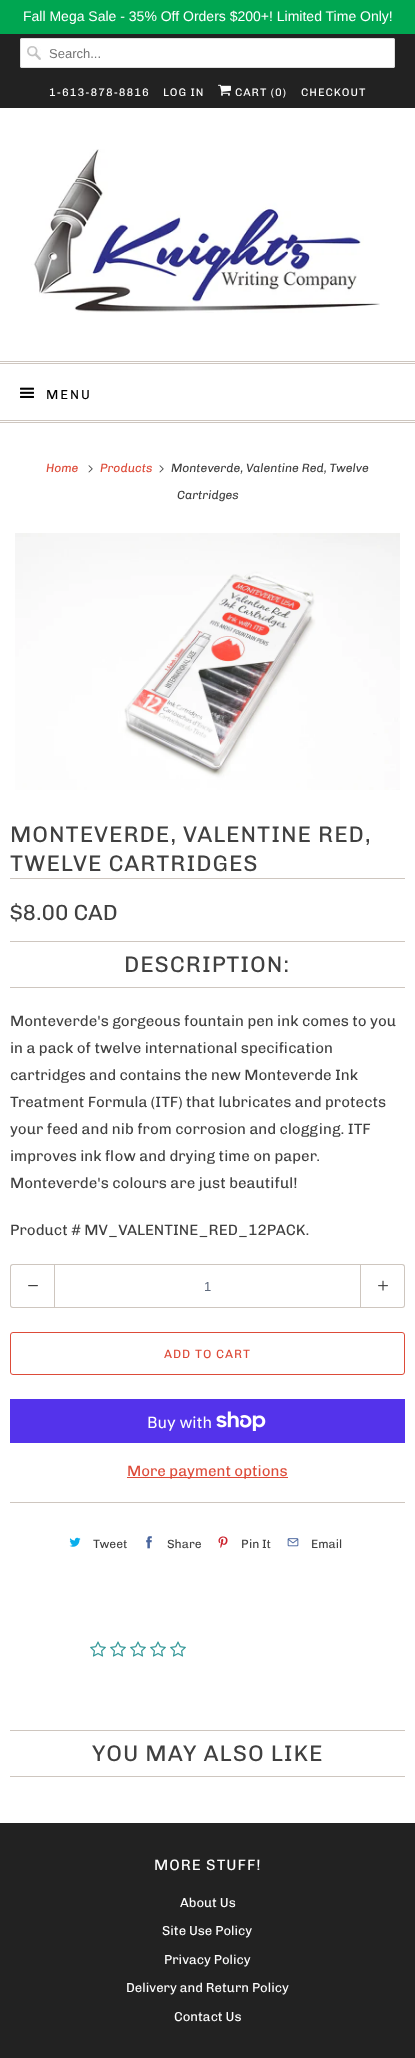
<svg xmlns="http://www.w3.org/2000/svg" width="415" height="2058" viewBox="0 0 415 2058">
  <style>
    .t1 { font: 14px Liberation Sans; fill: #fff; }
    .t2 { font: 13px Liberation Sans; fill: #757575; }
    .t3 { font: 11px Chivo; letter-spacing: 1px; fill: #fff; }
    .t4 { font: 13px Chivo; letter-spacing: 2px; fill: #000; }
    .t5 { font: italic 12px Chivo; fill: #dd4b39; }
    .t6 { font: italic 12px Chivo; fill: #404040; }
    .t7 { font: 22.5px Chivo; letter-spacing: 1px; fill: #404040; }
    .t8 { font: 22px Chivo; fill: #404040; }
    .t9 { font: 15px Chivo; fill: #404040; }
    .t10 { font: 13px Liberation Sans; fill: #5f6a7d; }
    .t11 { font: 12px Chivo; letter-spacing: 1px; fill: #dd4b39; }
    .t12 { font: 16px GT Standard; fill: #fff; }
    .t13 { font: 15px Chivo; fill: #dd4b39; }
    .t14 { font: 12px Chivo; fill: #404040; }
    .t15 { font: 15px Chivo; letter-spacing: 1px; fill: #fff; }
    .t16 { font: 13px Chivo; fill: #fff; }
  </style>
  <rect width="100%" height="100%" fill="#fff"/>
  <rect x="0" y="0" width="415" height="34" fill="#00a651"/>
  <text x="23" y="21" class="t1">Fall Mega Sale - 35% Off Orders $200+! Limited Time Only!</text>
  <rect x="0" y="34" width="415" height="74" fill="#222"/>
  <rect x="20" y="38" width="375" height="30" rx="2" fill="#fff"/>
  <image x="27" y="46" width="14" height="14" href="images/1.png"/>
  <rect x="20.5" y="38.5" width="374" height="29" rx="1.5" fill="none" stroke="#dfdfdf"/>
  <text x="49" y="58" class="t2">Search...</text>
  <text x="49" y="96" class="t3">1-613-878-8816</text>
  <text x="163" y="96" class="t3">LOG IN</text>
  <image x="218" y="84" width="13" height="12" href="images/2.png"/>
  <text x="235" y="96" class="t3">CART (0)</text>
  <text x="301" y="96" class="t3">CHECKOUT</text>
  <image x="31" y="149" width="349" height="164" href="images/3.png"/>
  <rect x="0" y="361" width="415" height="1" fill="#cec6bf"/>
  <rect x="0" y="363" width="415" height="1" fill="#cec6bf"/>
  <rect x="0" y="420" width="415" height="1" fill="#cec6bf"/>
  <rect x="0" y="422" width="415" height="1" fill="#cec6bf"/>
  <image x="20" y="387" width="14" height="11" href="images/4.png"/>
  <text x="46" y="399" class="t4">MENU</text>
  <text x="46" y="472" class="t5">Home</text>
  <image x="88" y="465" width="5" height="8" href="images/5.png"/>
  <text x="100" y="472" class="t5">Products</text>
  <image x="159" y="465" width="5" height="8" href="images/5.png"/>
  <text x="171" y="472" class="t6">Monteverde, Valentine Red, Twelve</text>
  <text x="177" y="499" class="t6">Cartridges</text>
  <image x="15" y="533" width="385" height="257" href="images/6.png"/>
  <rect x="10" y="878" width="395" height="1" fill="#cec6bf"/>
  <text x="10" y="842" class="t7">MONTEVERDE, VALENTINE RED,</text>
  <text x="10" y="871" class="t7">TWELVE CARTRIDGES</text>
  <text x="10" y="920" class="t8">$8.00 CAD</text>
  <rect x="10" y="941" width="395" height="1" fill="#cec6bf"/>
  <rect x="10" y="987" width="395" height="1" fill="#cec6bf"/>
  <text x="124" y="972" class="t7">DESCRIPTION:</text>
  <text x="10" y="1026" class="t9">Monteverde's gorgeous fountain pen ink comes to you</text>
  <text x="10" y="1053" class="t9">in a pack of twelve international specification</text>
  <text x="10" y="1080" class="t9">cartridges and contains the new Monteverde Ink</text>
  <text x="10" y="1107" class="t9">Treatment Formula (ITF) that lubricates and protects</text>
  <text x="10" y="1134" class="t9">your feed and nib from corrosion and clogging. ITF</text>
  <text x="10" y="1161" class="t9">improves ink flow and drying time on paper.</text>
  <text x="10" y="1188" class="t9">Monteverde's colours are just beautiful!</text>
  <text x="10" y="1235" class="t9">Product # MV_VALENTINE_RED_12PACK.</text>
  <path d="M13 1264H54V1308H13C11 1308 10 1307 10 1305V1267C10 1265 11 1264 13 1264ZM13 1265H54V1307H13C12 1307 11 1306 11 1305V1267C11 1266 12 1265 13 1265Z" fill="#cec6bf" fill-rule="evenodd"/>
  <image x="28" y="1285" width="10" height="2" href="images/7.png"/>
  <rect x="54.5" y="1264.5" width="306" height="43" fill="none" stroke="#cec6bf"/>
  <text x="204" y="1291" class="t10">1</text>
  <path d="M361 1264H402C404 1264 405 1265 405 1267V1305C405 1307 404 1308 402 1308H361ZM361 1265H402C403 1265 404 1266 404 1267V1305C404 1306 403 1307 402 1307H361Z" fill="#cec6bf" fill-rule="evenodd"/>
  <image x="378" y="1280" width="10" height="11" href="images/8.png"/>
  <rect x="10.5" y="1332.5" width="394" height="42" rx="2.5" fill="none" stroke="#dd4b39"/>
  <text x="164" y="1358" class="t11">ADD TO CART</text>
  <rect x="10" y="1399" width="395" height="44" fill="#5433eb"/>
  <text x="147" y="1428" class="t12">Buy with</text>
  <image x="216" y="1411" width="50" height="20" href="images/9.png"/>
  <rect x="127" y="1477" width="161" height="1" fill="#dd4b39"/>
  <text x="127" y="1476" class="t13">More payment options</text>
  <rect x="10" y="1502" width="395" height="1" fill="#cec6bf"/>
  <image x="69" y="1537" width="12" height="10" href="images/10.png"/>
  <text x="93" y="1548" class="t14">Tweet</text>
  <image x="146" y="1536" width="6" height="13" href="images/11.png"/>
  <text x="167" y="1548" class="t14">Share</text>
  <image x="218" y="1536" width="10" height="12" href="images/12.png"/>
  <text x="241" y="1548" class="t14">Pin It</text>
  <image x="287" y="1538" width="12" height="9" href="images/13.png"/>
  <text x="311" y="1548" class="t14">Email</text>
  <image x="90" y="1641" width="16" height="16" href="images/14.png"/>
  <image x="110" y="1641" width="16" height="16" href="images/14.png"/>
  <image x="130" y="1641" width="16" height="16" href="images/14.png"/>
  <image x="150" y="1641" width="16" height="16" href="images/14.png"/>
  <image x="170" y="1641" width="16" height="16" href="images/14.png"/>
  <rect x="10" y="1730" width="395" height="1" fill="#cec6bf"/>
  <rect x="10" y="1776" width="395" height="1" fill="#cec6bf"/>
  <text x="92" y="1761" class="t7">YOU MAY ALSO LIKE</text>
  <rect x="0" y="1823" width="415" height="235" fill="#222"/>
  <text x="154" y="1870" class="t15">MORE STUFF!</text>
  <text x="180" y="1907" class="t16">About Us</text>
  <text x="162" y="1935" class="t16">Site Use Policy</text>
  <text x="164" y="1964" class="t16">Privacy Policy</text>
  <text x="126" y="1992" class="t16">Delivery and Return Policy</text>
  <text x="174" y="2021" class="t16">Contact Us</text>
</svg>
